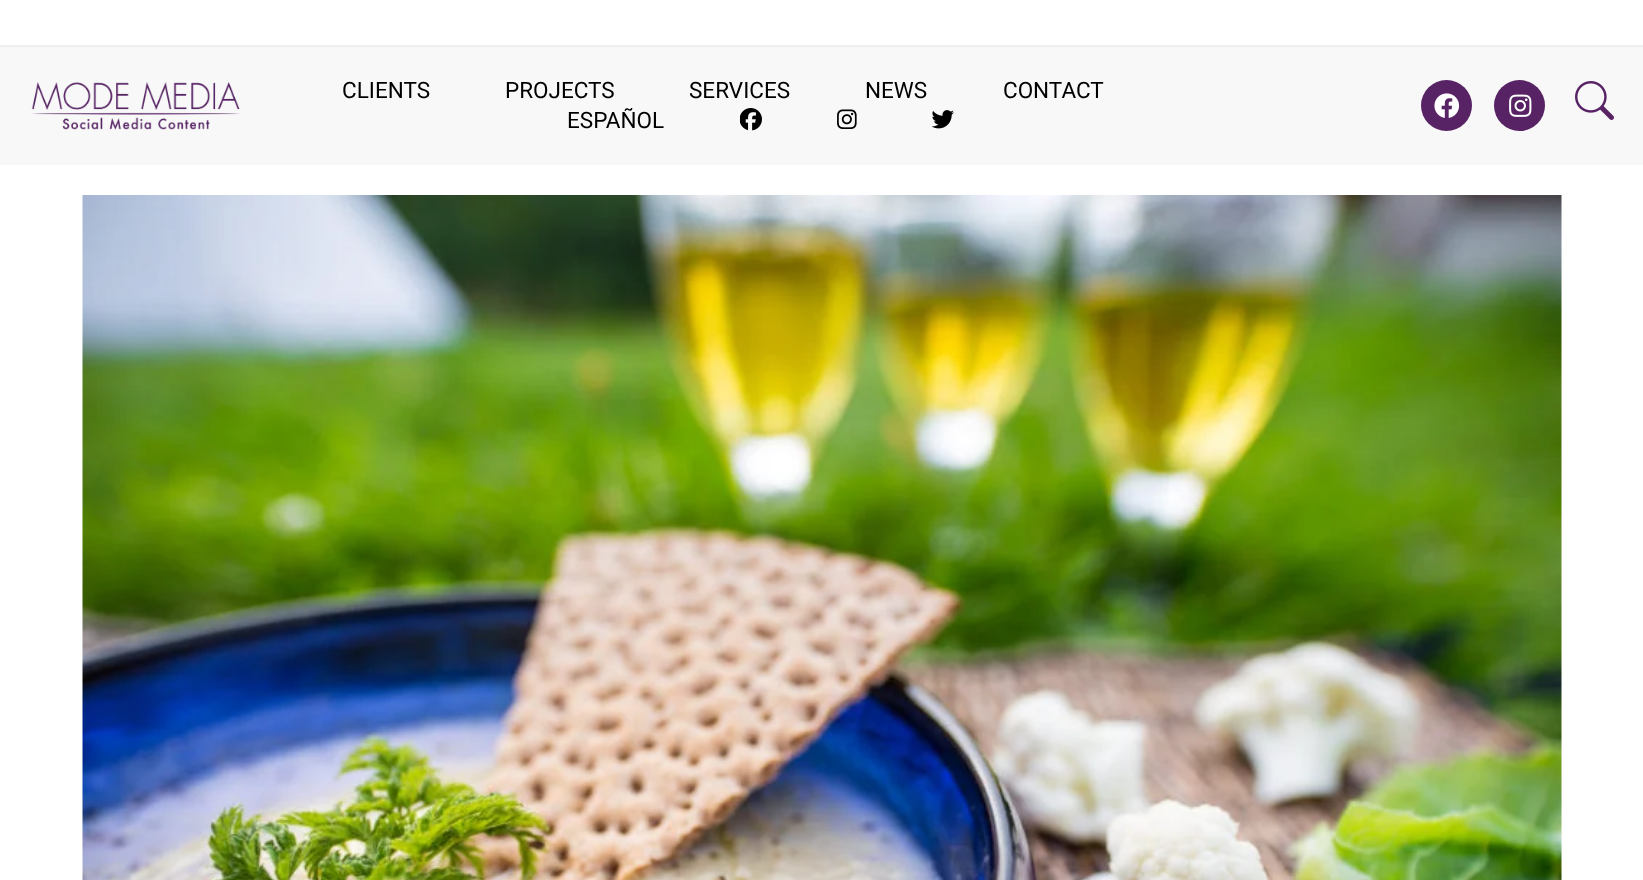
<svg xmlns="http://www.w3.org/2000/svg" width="1643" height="880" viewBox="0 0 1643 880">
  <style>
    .t1 { font: 22.5px Roboto; fill: #000; }
  </style>
  <rect width="100%" height="100%" fill="#fff"/>
  <rect x="0" y="45" width="1643" height="2" fill="#eee"/>
  <rect x="0" y="47" width="1643" height="118" fill="#f8f8f8"/>
  <image x="31" y="82" width="209" height="48" href="images/1.png"/>
  <text x="342" y="98" class="t1">CLIENTS</text>
  <text x="505" y="98" class="t1">PROJECTS</text>
  <text x="689" y="98" class="t1">SERVICES</text>
  <text x="865" y="98" class="t1">NEWS</text>
  <text x="1003" y="98" class="t1">CONTACT</text>
  <text x="567" y="128" class="t1">ESPAÑOL</text>
  <image x="740" y="108" width="22" height="23" href="images/2.png"/>
  <image x="837" y="109" width="20" height="20" href="images/3.png"/>
  <image x="932" y="110" width="22" height="19" href="images/4.png"/>
  <circle cx="1446.5" cy="105.5" r="25.5" fill="#572364"/>
  <image x="1434" y="93" width="26" height="25" href="images/5.png"/>
  <circle cx="1519.5" cy="105.5" r="25.5" fill="#572364"/>
  <image x="1509" y="94" width="23" height="23" href="images/6.png"/>
  <image x="1575" y="81" width="39" height="39" href="images/7.png"/>
  <image x="82" y="195" width="1480" height="685" href="images/8.png"/>
</svg>
